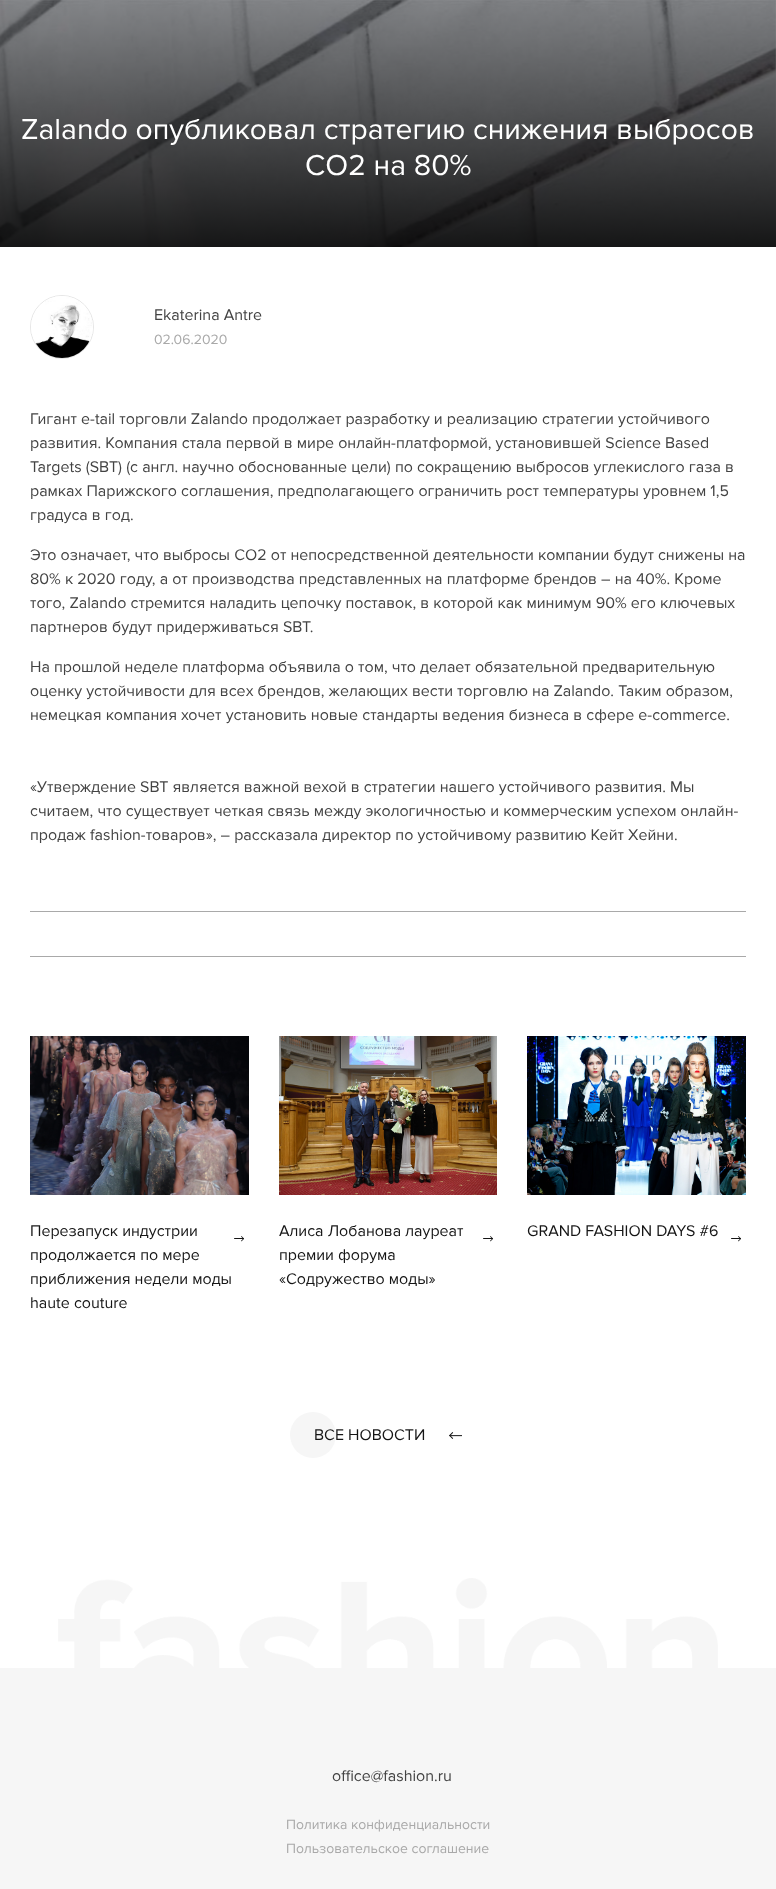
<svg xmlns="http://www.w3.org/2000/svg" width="776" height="1889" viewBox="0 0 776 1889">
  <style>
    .t1 { font: 30px Proxima Nova; fill: #fff; }
    .t2 { font: 16px Proxima Nova; fill: #434343; }
    .t3 { font: 14px Proxima Nova; fill: #a9a9a9; }
    .t4 { font: 16px Proxima Nova; fill: #151515; }
  </style>
  <defs>
    <linearGradient id="g1" gradientUnits="userSpaceOnUse" x1="388" y1="-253" x2="388" y2="247"><stop offset="0.1" stop-color="#000" stop-opacity="0"/><stop offset="1" stop-color="#000" stop-opacity="0.9"/></linearGradient>
  </defs>
  <rect width="100%" height="100%" fill="#fff"/>
  <image x="0" y="0" width="776" height="247" href="images/1.png"/>
  <rect x="0" y="0" width="776" height="247" fill="url(#g1)"/>
  <text x="21" y="139" class="t1">Zalando опубликовал стратегию снижения выбросов</text>
  <text x="305" y="175" class="t1">CO2 на 80%</text>
  <circle cx="62" cy="327" r="31.5" fill="none" stroke="#e6e6e6"/>
  <image x="31" y="296" width="62" height="62" href="images/2.png"/>
  <text x="154" y="320" class="t2">Ekaterina Antre</text>
  <text x="154" y="344" class="t3">02.06.2020</text>
  <text x="30" y="424" class="t2">Гигант e-tail торговли Zalando продолжает разработку и реализацию стратегии устойчивого</text>
  <text x="30" y="448" class="t2">развития. Компания стала первой в мире онлайн-платформой, установившей Science Based</text>
  <text x="30" y="472" class="t2">Targets (SBT) (с англ. научно обоснованные цели) по сокращению выбросов углекислого газа в</text>
  <text x="30" y="496" class="t2">рамках Парижского соглашения, предполагающего ограничить рост температуры уровнем 1,5</text>
  <text x="30" y="520" class="t2">градуса в год.</text>
  <text x="30" y="560" class="t2">Это означает, что выбросы CO2 от непосредственной деятельности компании будут снижены на</text>
  <text x="30" y="584" class="t2">80% к 2020 году, а от производства представленных на платформе брендов – на 40%. Кроме</text>
  <text x="30" y="608" class="t2">того, Zalando стремится наладить цепочку поставок, в которой как минимум 90% его ключевых</text>
  <text x="30" y="632" class="t2">партнеров будут придерживаться SBT.</text>
  <text x="30" y="672" class="t2">На прошлой неделе платформа объявила о том, что делает обязательной предварительную</text>
  <text x="30" y="696" class="t2">оценку устойчивости для всех брендов, желающих вести торговлю на Zalando. Таким образом,</text>
  <text x="30" y="720" class="t2">немецкая компания хочет установить новые стандарты ведения бизнеса в сфере e-commerce.</text>
  <text x="30" y="792" class="t2">«Утверждение SBT является важной вехой в стратегии нашего устойчивого развития. Мы</text>
  <text x="30" y="816" class="t2">считаем, что существует четкая связь между экологичностью и коммерческим успехом онлайн-</text>
  <text x="30" y="840" class="t2">продаж fashion-товаров», – рассказала директор по устойчивому развитию Кейт Хейни.</text>
  <rect x="30" y="911" width="716" height="1" fill="#a9a9a9"/>
  <rect x="30" y="956" width="716" height="1" fill="#a9a9a9"/>
  <image x="30" y="1036" width="219" height="159" href="images/3.png"/>
  <text x="30" y="1236" class="t4">Перезапуск индустрии</text>
  <text x="30" y="1260" class="t4">продолжается по мере</text>
  <text x="30" y="1284" class="t4">приближения недели моды</text>
  <text x="30" y="1308" class="t4">haute couture</text>
  <image x="234" y="1236" width="10" height="6" href="images/4.png"/>
  <image x="279" y="1036" width="218" height="159" href="images/5.png"/>
  <text x="279" y="1236" class="t4">Алиса Лобанова лауреат</text>
  <text x="279" y="1260" class="t4">премии форума</text>
  <text x="279" y="1284" class="t4">«Содружество моды»</text>
  <image x="483" y="1236" width="10" height="6" href="images/4.png"/>
  <image x="527" y="1036" width="219" height="159" href="images/6.png"/>
  <text x="527" y="1236" class="t4">GRAND FASHION DAYS #6</text>
  <image x="731" y="1236" width="10" height="6" href="images/4.png"/>
  <circle cx="313" cy="1435" r="23" fill="#f6f6f6"/>
  <text x="314" y="1440" class="t4">ВСЕ НОВОСТИ</text>
  <image x="449" y="1432" width="13" height="7" href="images/7.png"/>
  <rect x="0" y="1668" width="776" height="221" fill="#f6f6f6"/>
  <image x="58" y="1578" width="660" height="90" href="images/8.png"/>
  <text x="332" y="1781" class="t2">office@fashion.ru</text>
  <text x="286" y="1829" class="t3">Политика конфиденциальности</text>
  <text x="286" y="1853" class="t3">Пользовательское соглашение</text>
</svg>
